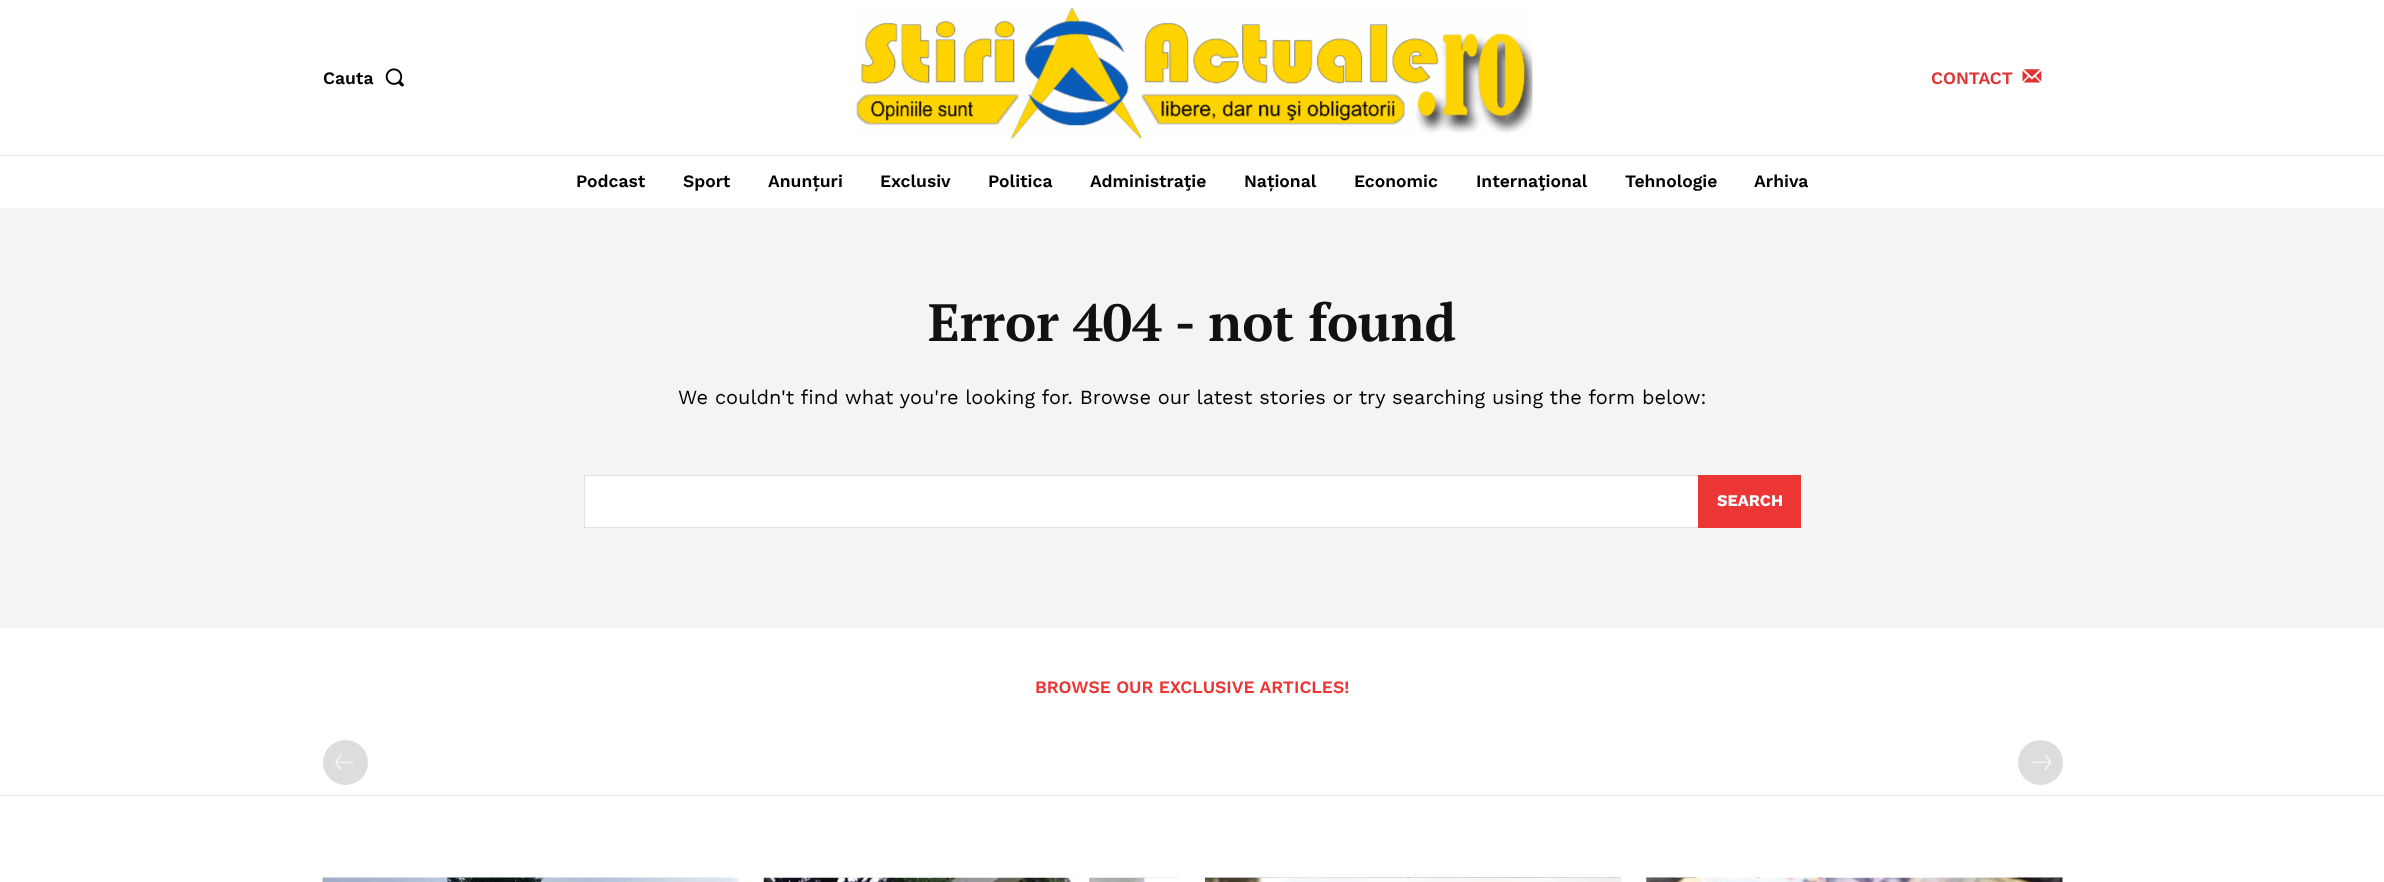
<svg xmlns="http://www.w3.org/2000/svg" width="2384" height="882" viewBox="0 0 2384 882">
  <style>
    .t1 { font: 600 17.5px Work Sans; fill: #000; }
    .t2 { font: 600 17.5px Work Sans; fill: #d33; }
    .t3 { font: bold 52.5px PT Serif; fill: #111; }
    .t4 { font: 20px Work Sans; fill: #000; }
    .t5 { font: bold 16.25px Work Sans; fill: #fff; }
    .t6 { font: 600 17.5px Work Sans; fill: #ec3535; }
  </style>
  <rect width="100%" height="100%" fill="#fff"/>
  <text x="323" y="84" class="t1">Cauta</text>
  <image x="385" y="68" width="19" height="19" href="images/1.png"/>
  <image x="856" y="8" width="677" height="131" href="images/2.png"/>
  <text x="1931" y="84" class="t2">CONTACT</text>
  <image x="2022" y="69" width="20" height="14" href="images/3.png"/>
  <rect x="0" y="155" width="2384" height="1" fill="#eaeaea"/>
  <text x="576" y="187" class="t1">Podcast</text>
  <text x="683" y="187" class="t1">Sport</text>
  <text x="768" y="187" class="t1">Anunțuri</text>
  <text x="880" y="187" class="t1">Exclusiv</text>
  <text x="988" y="187" class="t1">Politica</text>
  <text x="1090" y="187" class="t1">Administraţie</text>
  <text x="1244" y="187" class="t1">Național</text>
  <text x="1354" y="187" class="t1">Economic</text>
  <text x="1476" y="187" class="t1">Internaţional</text>
  <text x="1625" y="187" class="t1">Tehnologie</text>
  <text x="1754" y="187" class="t1">Arhiva</text>
  <rect x="0" y="208" width="2384" height="420" fill="#f4f4f4"/>
  <text x="928" y="341" class="t3">Error 404 - not found</text>
  <text x="678" y="404" class="t4">We couldn't find what you're looking for. Browse our latest stories or try searching using the form below:</text>
  <rect x="585" y="476" width="1113" height="51" fill="#fff"/>
  <rect x="584.5" y="475.5" width="1216" height="52" fill="none" stroke="#e1e1e1"/>
  <rect x="1698" y="475" width="103" height="53" fill="#ec3535"/>
  <text x="1717" y="506" class="t5">SEARCH</text>
  <text x="1035" y="693" class="t6">BROWSE OUR EXCLUSIVE ARTICLES!</text>
  <circle cx="345.5" cy="762.5" r="22.5" fill="#ddd"/>
  <image x="335" y="754" width="19" height="16" href="images/4.png"/>
  <circle cx="2040.5" cy="762.5" r="22.5" fill="#ddd"/>
  <image x="2032" y="754" width="19" height="16" href="images/5.png"/>
  <rect x="0" y="795" width="2384" height="1" fill="#eaeaea"/>
  <image x="322" y="877" width="417" height="5" href="images/6.png"/>
  <image x="763" y="877" width="417" height="5" href="images/7.png"/>
  <image x="1205" y="877" width="417" height="5" href="images/8.png"/>
  <image x="1646" y="877" width="417" height="5" href="images/9.png"/>
</svg>
